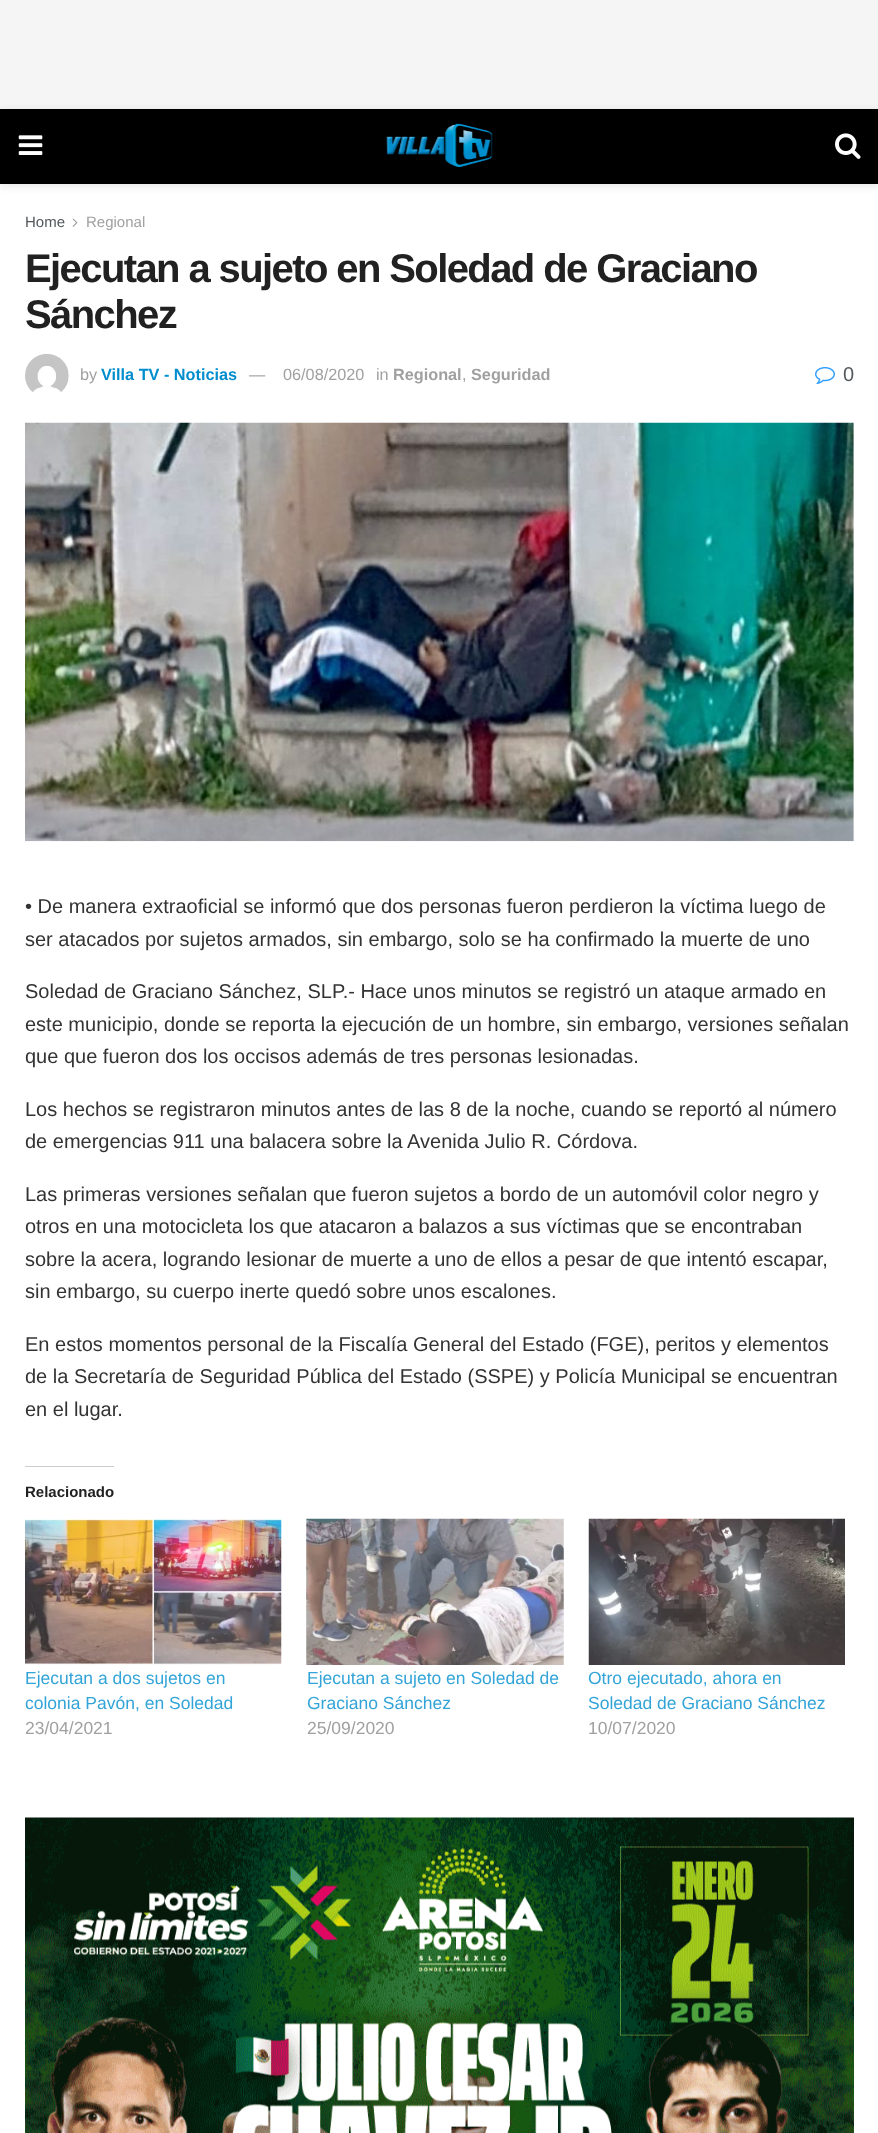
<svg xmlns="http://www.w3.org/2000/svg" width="878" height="2133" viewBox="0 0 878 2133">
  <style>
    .t1 { font: 15px Liberation Sans; fill: #53585c; }
    .t2 { font: 15px Liberation Sans; fill: #a0a0a0; }
    .t3 { font: bold 40px Liberation Sans; letter-spacing: -1.6px; fill: #212121; }
    .t4 { font: 16.25px Liberation Sans; fill: #a0a0a0; }
    .t5 { font: bold 16.25px Liberation Sans; fill: #008dce; }
    .t6 { font: bold 16.25px Liberation Sans; fill: #a0a0a0; }
    .t7 { font: 20px Liberation Sans; fill: #53585c; }
    .t8 { font: 20px Liberation Sans; fill: #333; }
    .t9 { font: bold 15px Liberation Sans; fill: #212121; }
    .t10 { font: 17.5px Liberation Sans; fill: #33a4d8; }
    .t11 { font: 17.5px Liberation Sans; fill: #a0a0a0; }
  </style>
  <rect width="100%" height="100%" fill="#fff"/>
  <rect x="0" y="0" width="878" height="109" fill="#f5f5f5"/>
  <rect x="0" y="111" width="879" height="75" fill="#0000001a" filter="blur(4px)"/>
  <rect x="0" y="109" width="878" height="75" fill="#000"/>
  <image x="18" y="135" width="25" height="20" href="images/1.png"/>
  <image x="386" y="123" width="107" height="45" href="images/2.png"/>
  <image x="835" y="133" width="26" height="26" href="images/3.png"/>
  <text x="25" y="227" class="t1">Home</text>
  <image x="72" y="218" width="6" height="9" href="images/4.png"/>
  <text x="86" y="227" class="t2">Regional</text>
  <text x="25" y="282" class="t3">Ejecutan a sujeto en Soledad de Graciano</text>
  <text x="25" y="328" class="t3">Sánchez</text>
  <image x="25" y="354" width="44" height="38" href="images/5.png"/>
  <text x="80" y="380" class="t4">by</text>
  <text x="101" y="380" class="t5">Villa TV - Noticias</text>
  <text x="249" y="380" class="t4">—</text>
  <text x="283" y="380" class="t4">06/08/2020</text>
  <text x="376" y="380" class="t4">in</text>
  <text x="393" y="380" class="t6">Regional</text>
  <text x="462" y="380" class="t4">,</text>
  <text x="471" y="380" class="t6">Seguridad</text>
  <image x="815" y="367" width="20" height="18" href="images/6.png"/>
  <text x="843" y="381" class="t7">0</text>
  <rect x="853" y="423" width="1" height="418" fill="#f7f7f7"/>
  <image x="25" y="422" width="829" height="420" href="images/7.png"/>
  <text x="25" y="913" class="t8">• De manera extraoficial se informó que dos personas fueron perdieron la víctima luego de</text>
  <text x="25" y="946" class="t8">ser atacados por sujetos armados, sin embargo, solo se ha confirmado la muerte de uno</text>
  <text x="25" y="998" class="t8">Soledad de Graciano Sánchez, SLP.- Hace unos minutos se registró un ataque armado en</text>
  <text x="25" y="1031" class="t8">este municipio, donde se reporta la ejecución de un hombre, sin embargo, versiones señalan</text>
  <text x="25" y="1063" class="t8">que que fueron dos los occisos además de tres personas lesionadas.</text>
  <text x="25" y="1116" class="t8">Los hechos se registraron minutos antes de las 8 de la noche, cuando se reportó al número</text>
  <text x="25" y="1148" class="t8">de emergencias 911 una balacera sobre la Avenida Julio R. Córdova.</text>
  <text x="25" y="1201" class="t8">Las primeras versiones señalan que fueron sujetos a bordo de un automóvil color negro y</text>
  <text x="25" y="1233" class="t8">otros en una motocicleta los que atacaron a balazos a sus víctimas que se encontraban</text>
  <text x="25" y="1266" class="t8">sobre la acera, logrando lesionar de muerte a uno de ellos a pesar de que intentó escapar,</text>
  <text x="25" y="1298" class="t8">sin embargo, su cuerpo inerte quedó sobre unos escalones.</text>
  <text x="25" y="1351" class="t8">En estos momentos personal de la Fiscalía General del Estado (FGE), peritos y elementos</text>
  <text x="25" y="1383" class="t8">de la Secretaría de Seguridad Pública del Estado (SSPE) y Policía Municipal se encuentran</text>
  <text x="25" y="1416" class="t8">en el lugar.</text>
  <rect x="25" y="1466" width="89" height="1" fill="#ccc"/>
  <text x="25" y="1497" class="t9">Relacionado</text>
  <image x="25" y="1518" width="257" height="147" href="images/8.png"/>
  <text x="25" y="1684" class="t10">Ejecutan a dos sujetos en</text>
  <text x="25" y="1709" class="t10">colonia Pavón, en Soledad</text>
  <text x="25" y="1734" class="t11">23/04/2021</text>
  <image x="306" y="1518" width="258" height="147" href="images/9.png"/>
  <text x="307" y="1684" class="t10">Ejecutan a sujeto en Soledad de</text>
  <text x="307" y="1709" class="t10">Graciano Sánchez</text>
  <text x="307" y="1734" class="t11">25/09/2020</text>
  <image x="588" y="1518" width="257" height="147" href="images/10.png"/>
  <text x="588" y="1684" class="t10">Otro ejecutado, ahora en</text>
  <text x="588" y="1709" class="t10">Soledad de Graciano Sánchez</text>
  <text x="588" y="1734" class="t11">10/07/2020</text>
  <image x="25" y="1817" width="829" height="316" href="images/11.png"/>
</svg>
